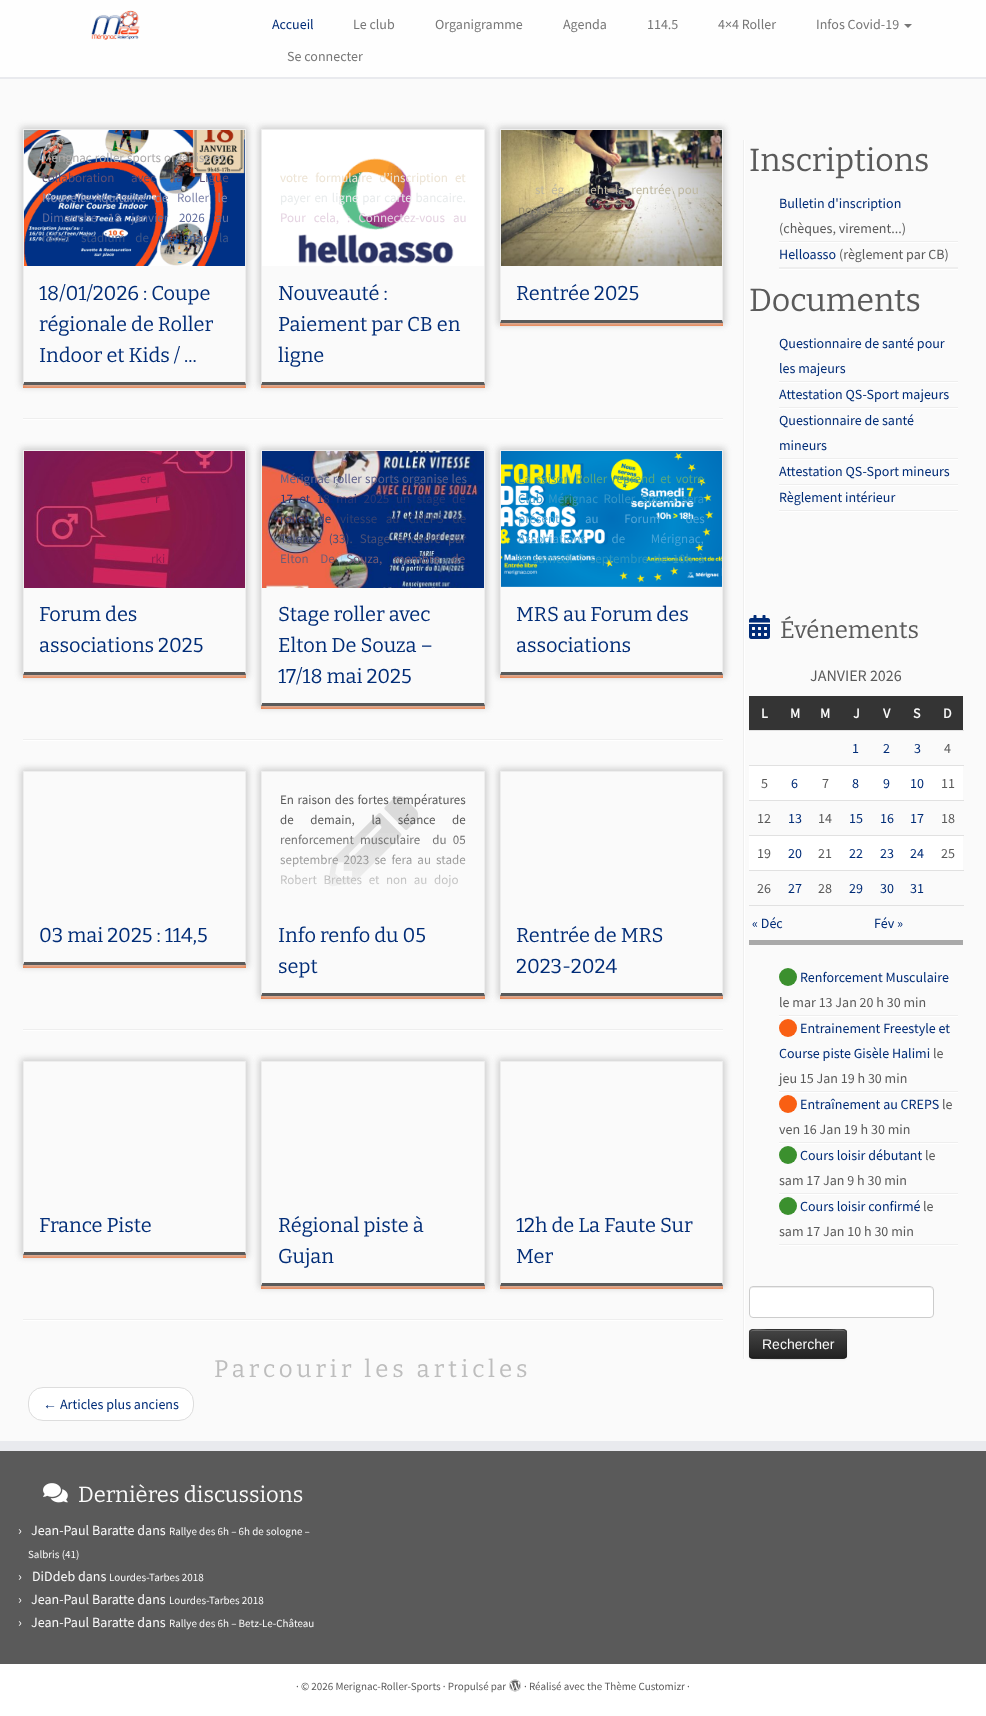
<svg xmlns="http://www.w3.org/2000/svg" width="986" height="1716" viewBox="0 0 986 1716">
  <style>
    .t1 { font: 14px Source Sans Pro; fill: #002c77; }
    .t2 { font: 14px Source Sans Pro; fill: #777; }
    .t3 { font: 13px Source Sans Pro; fill: #acaaab; }
    .t4 { font: 13px Source Sans Pro; fill: #5d5075; }
    .t5 { font: 13px Source Sans Pro; fill: #8087ac; }
    .t6 { font: 13px Source Sans Pro; fill: #626f9e; }
    .t7 { font: 13px Source Sans Pro; fill: #3c5689; }
    .t8 { font: 100 20px Bitter; fill: #002c77; }
    .t9 { font: 13px Source Sans Pro; fill: #ede4d5; }
    .t10 { font: 13px Source Sans Pro; fill: #e8ebec; }
    .t11 { font: 13px Source Sans Pro; fill: #e5d4e2; }
    .t12 { font: 13px Source Sans Pro; fill: #bdb7a1; }
    .t13 { font: 13px Source Sans Pro; fill: #9f9473; }
    .t14 { font: 13px Source Sans Pro; fill: #961c50; }
    .t15 { font: 13px Source Sans Pro; fill: #901b4d; }
    .t16 { font: 13px Source Sans Pro; fill: #5e618b; }
    .t17 { font: 13px Source Sans Pro; fill: #2f3b76; }
    .t18 { font: 13px Source Sans Pro; fill: #354271; }
    .t19 { font: 13px Source Sans Pro; fill: #4b5076; }
    .t20 { font: 13px Source Sans Pro; fill: #725b74; }
    .t21 { font: 13px Source Sans Pro; fill: #59a981; }
    .t22 { font: 13px Source Sans Pro; fill: #3799c9; }
    .t23 { font: 13px Source Sans Pro; fill: #53a7d7; }
    .t24 { font: 13px Source Sans Pro; fill: #49a5d7; }
    .t25 { font: 13px Source Sans Pro; fill: #3098c0; }
    .t26 { font: 13px Source Sans Pro; fill: #5a5a5a; }
    .t27 { font: 100 24px Bitter; letter-spacing: 4px; fill: #bdbdbd; }
    .t28 { font: 14px Liberation Serif; fill: #002c77; }
    .t29 { font: 100 32px Bitter; fill: #5a5a5a; }
    .t30 { font: 14px Source Sans Pro; fill: #5a5a5a; }
    .t31 { font: 100 24px Bitter; fill: #5a5a5a; }
    .t32 { font: 16px Source Sans Pro; fill: #5a5a5a; }
    .t33 { font: bold 14px Source Sans Pro; fill: #fafafa; }
    .t34 { font: 14px Liberation Sans; fill: #fafafa; }
    .t35 { font: 100 22px Bitter; fill: #fafafa; }
    .t36 { font: 14px Source Sans Pro; fill: #fafafa; }
    .t37 { font: 11px Source Sans Pro; fill: #fafafa; }
    .t38 { font: 11px Source Sans Pro; fill: #5a5a5a; }
  </style>
  <defs>
    <clipPath id="clip1"><path d="M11 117H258V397H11ZM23 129H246V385H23Z" clip-rule="evenodd"/></clipPath>
    <clipPath id="clip2"><path d="M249 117H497V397H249ZM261 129H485V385H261Z" clip-rule="evenodd"/></clipPath>
    <clipPath id="clip3"><path d="M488 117H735V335H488ZM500 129H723V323H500Z" clip-rule="evenodd"/></clipPath>
    <clipPath id="clip4"><path d="M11 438H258V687H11ZM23 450H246V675H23Z" clip-rule="evenodd"/></clipPath>
    <clipPath id="clip5"><path d="M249 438H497V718H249ZM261 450H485V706H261Z" clip-rule="evenodd"/></clipPath>
    <clipPath id="clip6"><path d="M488 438H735V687H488ZM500 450H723V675H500Z" clip-rule="evenodd"/></clipPath>
    <clipPath id="clip7"><path d="M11 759H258V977H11ZM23 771H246V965H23Z" clip-rule="evenodd"/></clipPath>
    <clipPath id="clip8"><path d="M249 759H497V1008H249ZM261 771H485V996H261Z" clip-rule="evenodd"/></clipPath>
    <linearGradient id="g1" gradientUnits="userSpaceOnUse" x1="373" y1="827" x2="373" y2="909"><stop offset="0" stop-color="#fafafa" stop-opacity="0"/><stop offset="1" stop-color="#fafafa"/></linearGradient>
    <clipPath id="clip9"><path d="M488 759H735V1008H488ZM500 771H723V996H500Z" clip-rule="evenodd"/></clipPath>
    <clipPath id="clip10"><path d="M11 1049H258V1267H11ZM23 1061H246V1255H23Z" clip-rule="evenodd"/></clipPath>
    <clipPath id="clip11"><path d="M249 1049H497V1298H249ZM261 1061H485V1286H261Z" clip-rule="evenodd"/></clipPath>
    <clipPath id="clip12"><path d="M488 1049H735V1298H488ZM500 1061H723V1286H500Z" clip-rule="evenodd"/></clipPath>
    <clipPath id="clip13"><rect x="749" y="1329" width="98" height="30" rx="4"/></clipPath>
    <linearGradient id="g2" gradientUnits="userSpaceOnUse" x1="798" y1="1330" x2="798" y2="1358"><stop offset="0" stop-color="#444"/><stop offset="1" stop-color="#222"/></linearGradient>
  </defs>
  <rect width="100%" height="100%" fill="#fafafa"/>
  <rect x="0" y="0" width="986" height="77" fill="#fefefe"/>
  <rect x="0" y="77" width="986" height="2" fill="#e9eaee"/>
  <image x="91" y="10" width="49" height="30" href="images/1.png"/>
  <text x="272" y="29" class="t1">Accueil</text>
  <text x="353" y="29" class="t2">Le club</text>
  <text x="435" y="29" class="t2">Organigramme</text>
  <text x="563" y="29" class="t2">Agenda</text>
  <text x="647" y="29" class="t2">114.5</text>
  <text x="718" y="29" class="t2">4×4 Roller</text>
  <text x="816" y="29" class="t2">Infos Covid-19</text>
  <path d="M904 24H912L908 28Z" fill="#777"/>
  <text x="287" y="61" class="t2">Se connecter</text>
  <rect x="23" y="385" width="223" height="3" fill="#f95f13"/>
  <g clip-path="url(#clip1)">
    <rect x="21" y="127" width="227" height="260" fill="#ccc" filter="blur(3px)"/>
  </g>
  <rect x="23" y="129" width="223" height="1" fill="#eee"/>
  <path d="M246 129V385L245 382V130Z" fill="#eee"/>
  <path d="M246 385H23L24 382H245Z" fill="#5a5a5a"/>
  <path d="M23 385V129L24 130V382Z" fill="#eee"/>
  <image x="24" y="130" width="221" height="136" href="images/2.png"/>
  <text x="42" y="162" word-spacing="0.5" class="t3">Mérignac roller sports organise en</text>
  <text x="42" y="182" word-spacing="14" class="t4">collaboration avec la Ligue</text>
  <text x="42" y="202" word-spacing="6" class="t5">Nouvelle-Aquitaine de Roller le</text>
  <text x="42" y="222" word-spacing="8" class="t6">Dimanche 18 janvier 2026 au</text>
  <text x="42" y="242" word-spacing="7.5" class="t7">roller stadium de Mérignac la</text>
  <text x="39" y="300" class="t8">18/01/2026 : Coupe</text>
  <text x="39" y="331" class="t8">régionale de Roller</text>
  <text x="39" y="362" class="t8">Indoor et Kids / ...</text>
  <rect x="261" y="385" width="224" height="3" fill="#f95f13"/>
  <g clip-path="url(#clip2)">
    <rect x="259" y="127" width="228" height="260" fill="#ccc" filter="blur(3px)"/>
  </g>
  <rect x="261" y="129" width="224" height="1" fill="#eee"/>
  <path d="M485 129V385L484 382V130Z" fill="#eee"/>
  <path d="M485 385H261L262 382H484Z" fill="#5a5a5a"/>
  <path d="M261 385V129L262 130V382Z" fill="#eee"/>
  <image x="262" y="130" width="222" height="136" href="images/3.png"/>
  <text x="280" y="182" word-spacing="4.5" class="t9">votre formulaire d’inscription et</text>
  <text x="280" y="202" word-spacing="1.25" class="t10">payer en ligne par carte bancaire.</text>
  <text x="280" y="222" word-spacing="5.5" class="t11">Pour cela, : Connectez-vous au</text>
  <text x="278" y="300" class="t8">Nouveauté :</text>
  <text x="278" y="331" class="t8">Paiement par CB en</text>
  <text x="278" y="362" class="t8">ligne</text>
  <rect x="500" y="323" width="223" height="3" fill="#f95f13"/>
  <g clip-path="url(#clip3)">
    <rect x="498" y="127" width="227" height="198" fill="#ccc" filter="blur(3px)"/>
  </g>
  <rect x="500" y="129" width="223" height="1" fill="#eee"/>
  <path d="M723 129V323L722 320V130Z" fill="#eee"/>
  <path d="M723 323H500L501 320H722Z" fill="#5a5a5a"/>
  <path d="M500 323V129L501 130V320Z" fill="#eee"/>
  <image x="501" y="130" width="221" height="136" href="images/4.png"/>
  <text x="535" y="194" word-spacing="4" class="t12">st ég</text>
  <text x="573" y="194" word-spacing="4" class="t12">ement la rentrée pou</text>
  <text x="518" y="214" class="t13">nos sections</text>
  <text x="516" y="300" class="t8">Rentrée 2025</text>
  <rect x="23" y="418" width="700" height="1" fill="#eee"/>
  <rect x="23" y="419" width="700" height="1" fill="#fff"/>
  <rect x="23" y="675" width="223" height="3" fill="#f95f13"/>
  <g clip-path="url(#clip4)">
    <rect x="21" y="448" width="227" height="229" fill="#ccc" filter="blur(3px)"/>
  </g>
  <rect x="23" y="450" width="223" height="1" fill="#eee"/>
  <path d="M246 450V675L245 672V451Z" fill="#eee"/>
  <path d="M246 675H23L24 672H245Z" fill="#5a5a5a"/>
  <path d="M23 675V450L24 451V672Z" fill="#eee"/>
  <image x="24" y="451" width="221" height="137" href="images/5.png"/>
  <text x="140" y="483" word-spacing="12" class="t14">er</text>
  <text x="155" y="503" word-spacing="3" class="t15">r</text>
  <text x="151" y="563" word-spacing="1" class="t14">rki</text>
  <text x="39" y="621" class="t8">Forum des</text>
  <text x="39" y="652" class="t8">associations 2025</text>
  <rect x="261" y="706" width="224" height="3" fill="#f95f13"/>
  <g clip-path="url(#clip5)">
    <rect x="259" y="448" width="228" height="260" fill="#ccc" filter="blur(3px)"/>
  </g>
  <rect x="261" y="450" width="224" height="1" fill="#eee"/>
  <path d="M485 450V706L484 703V451Z" fill="#eee"/>
  <path d="M485 706H261L262 703H484Z" fill="#5a5a5a"/>
  <path d="M261 706V450L262 451V703Z" fill="#eee"/>
  <image x="262" y="451" width="222" height="137" href="images/6.png"/>
  <text x="280" y="483" word-spacing="0.5" class="t16">Mérignac roller sports organise les</text>
  <text x="280" y="503" word-spacing="4" class="t17">17 et 18 mai 2025 un stage de</text>
  <text x="280" y="523" word-spacing="6" class="t18">roller de vitesse au CREPS de</text>
  <text x="280" y="543" word-spacing="4.5" class="t19">Talence (33). Stage encadré par</text>
  <text x="280" y="563" word-spacing="9" class="t20">Elton De Souza, membre de</text>
  <text x="278" y="621" class="t8">Stage roller avec</text>
  <text x="278" y="652" class="t8">Elton De Souza –</text>
  <text x="278" y="683" class="t8">17/18 mai 2025</text>
  <rect x="500" y="675" width="223" height="3" fill="#f95f13"/>
  <g clip-path="url(#clip6)">
    <rect x="498" y="448" width="227" height="229" fill="#ccc" filter="blur(3px)"/>
  </g>
  <rect x="500" y="450" width="223" height="1" fill="#eee"/>
  <path d="M723 450V675L722 672V451Z" fill="#eee"/>
  <path d="M723 675H500L501 672H722Z" fill="#5a5a5a"/>
  <path d="M500 675V450L501 451V672Z" fill="#eee"/>
  <image x="501" y="451" width="221" height="136" href="images/7.png"/>
  <text x="518" y="483" word-spacing="2.25" class="t21">La saison Roller reprend et votre</text>
  <text x="518" y="503" word-spacing="2.75" class="t22">Club Mérignac Roller Sports sera</text>
  <text x="518" y="523" word-spacing="23" class="t23">présent au Forum des</text>
  <text x="518" y="543" word-spacing="23" class="t24">Associations de Mérignac,</text>
  <text x="518" y="563" word-spacing="2.75" class="t25">le samedi 7 septembre de 10h à</text>
  <text x="516" y="621" class="t8">MRS au Forum des</text>
  <text x="516" y="652" class="t8">associations</text>
  <rect x="23" y="739" width="700" height="1" fill="#eee"/>
  <rect x="23" y="740" width="700" height="1" fill="#fff"/>
  <rect x="23" y="965" width="223" height="3" fill="#f95f13"/>
  <g clip-path="url(#clip7)">
    <rect x="21" y="769" width="227" height="198" fill="#ccc" filter="blur(3px)"/>
  </g>
  <rect x="23" y="771" width="223" height="1" fill="#eee"/>
  <path d="M246 771V965L245 962V772Z" fill="#eee"/>
  <path d="M246 965H23L24 962H245Z" fill="#5a5a5a"/>
  <path d="M23 965V771L24 772V962Z" fill="#eee"/>
  <text x="39" y="942" class="t8">03 mai 2025 : 114,5</text>
  <rect x="261" y="996" width="224" height="3" fill="#f95f13"/>
  <g clip-path="url(#clip8)">
    <rect x="259" y="769" width="228" height="229" fill="#ccc" filter="blur(3px)"/>
  </g>
  <rect x="261" y="771" width="224" height="1" fill="#eee"/>
  <path d="M485 771V996L484 993V772Z" fill="#eee"/>
  <path d="M485 996H261L262 993H484Z" fill="#5a5a5a"/>
  <path d="M261 996V771L262 772V993Z" fill="#eee"/>
  <image x="328" y="796" width="91" height="91" href="images/8.png"/>
  <text x="280" y="804" word-spacing="1" class="t26">En raison des fortes températures</text>
  <text x="280" y="824" word-spacing="14" class="t26">de demain, la séance de</text>
  <text x="280" y="844" word-spacing="3.5" class="t26" xml:space="preserve">renforcement musculaire  du 05</text>
  <text x="280" y="864" word-spacing="2.5" class="t26">septembre 2023 se fera au stade</text>
  <text x="280" y="884" word-spacing="4" class="t26">Robert Brettes et non au dojo</text>
  <rect x="280" y="833" width="186" height="54" fill="url(#g1)"/>
  <text x="278" y="942" class="t8">Info renfo du 05</text>
  <text x="278" y="973" class="t8">sept</text>
  <rect x="500" y="996" width="223" height="3" fill="#f95f13"/>
  <g clip-path="url(#clip9)">
    <rect x="498" y="769" width="227" height="229" fill="#ccc" filter="blur(3px)"/>
  </g>
  <rect x="500" y="771" width="223" height="1" fill="#eee"/>
  <path d="M723 771V996L722 993V772Z" fill="#eee"/>
  <path d="M723 996H500L501 993H722Z" fill="#5a5a5a"/>
  <path d="M500 996V771L501 772V993Z" fill="#eee"/>
  <text x="516" y="942" class="t8">Rentrée de MRS</text>
  <text x="516" y="973" class="t8">2023-2024</text>
  <rect x="23" y="1029" width="700" height="1" fill="#eee"/>
  <rect x="23" y="1030" width="700" height="1" fill="#fff"/>
  <rect x="23" y="1255" width="223" height="3" fill="#f95f13"/>
  <g clip-path="url(#clip10)">
    <rect x="21" y="1059" width="227" height="198" fill="#ccc" filter="blur(3px)"/>
  </g>
  <rect x="23" y="1061" width="223" height="1" fill="#eee"/>
  <path d="M246 1061V1255L245 1252V1062Z" fill="#eee"/>
  <path d="M246 1255H23L24 1252H245Z" fill="#5a5a5a"/>
  <path d="M23 1255V1061L24 1062V1252Z" fill="#eee"/>
  <text x="39" y="1232" class="t8">France Piste</text>
  <rect x="261" y="1286" width="224" height="3" fill="#f95f13"/>
  <g clip-path="url(#clip11)">
    <rect x="259" y="1059" width="228" height="229" fill="#ccc" filter="blur(3px)"/>
  </g>
  <rect x="261" y="1061" width="224" height="1" fill="#eee"/>
  <path d="M485 1061V1286L484 1283V1062Z" fill="#eee"/>
  <path d="M485 1286H261L262 1283H484Z" fill="#5a5a5a"/>
  <path d="M261 1286V1061L262 1062V1283Z" fill="#eee"/>
  <text x="278" y="1232" class="t8">Régional piste à</text>
  <text x="278" y="1263" class="t8">Gujan</text>
  <rect x="500" y="1286" width="223" height="3" fill="#f95f13"/>
  <g clip-path="url(#clip12)">
    <rect x="498" y="1059" width="227" height="229" fill="#ccc" filter="blur(3px)"/>
  </g>
  <rect x="500" y="1061" width="223" height="1" fill="#eee"/>
  <path d="M723 1061V1286L722 1283V1062Z" fill="#eee"/>
  <path d="M723 1286H500L501 1283H722Z" fill="#5a5a5a"/>
  <path d="M500 1286V1061L501 1062V1283Z" fill="#eee"/>
  <text x="516" y="1232" class="t8">12h de La Faute Sur</text>
  <text x="516" y="1263" class="t8">Mer</text>
  <rect x="23" y="1319" width="700" height="1" fill="#eee"/>
  <rect x="23" y="1320" width="700" height="1" fill="#fff"/>
  <text x="214" y="1377" class="t27">Parcourir les articles</text>
  <rect x="28.5" y="1387.5" width="165" height="33" rx="14.5" fill="#fff" stroke="#ddd"/>
  <text x="43" y="1409" class="t28">←</text>
  <text x="60" y="1409" class="t1">Articles plus anciens</text>
  <rect x="743" y="140" width="1" height="1219" fill="#eee"/>
  <rect x="744" y="140" width="1" height="1219" fill="#fff"/>
  <text x="749" y="171" class="t29">Inscriptions</text>
  <rect x="779" y="241" width="179" height="1" fill="#eee"/>
  <text x="779" y="208" class="t1">Bulletin d'inscription</text>
  <text x="779" y="233" class="t30">(chèques, virement...)</text>
  <rect x="779" y="242" width="179" height="1" fill="#fff"/>
  <rect x="779" y="267" width="179" height="2" fill="#eee"/>
  <text x="779" y="259" class="t1">Helloasso</text>
  <text x="839" y="259" class="t30">(règlement par CB)</text>
  <rect x="779" y="269" width="179" height="1" fill="#fff"/>
  <text x="749" y="311" class="t29">Documents</text>
  <rect x="779" y="381" width="179" height="1" fill="#eee"/>
  <text x="779" y="348" class="t1">Questionnaire de santé pour</text>
  <text x="779" y="373" class="t1">les majeurs</text>
  <rect x="779" y="382" width="179" height="1" fill="#fff"/>
  <rect x="779" y="407" width="179" height="1" fill="#eee"/>
  <text x="779" y="399" class="t1">Attestation QS-Sport majeurs</text>
  <rect x="779" y="408" width="179" height="1" fill="#fff"/>
  <rect x="779" y="458" width="179" height="1" fill="#eee"/>
  <text x="779" y="425" class="t1">Questionnaire de santé</text>
  <text x="779" y="450" class="t1">mineurs</text>
  <rect x="779" y="459" width="179" height="1" fill="#fff"/>
  <rect x="779" y="484" width="179" height="1" fill="#eee"/>
  <text x="779" y="476" class="t1">Attestation QS-Sport mineurs</text>
  <rect x="779" y="485" width="179" height="1" fill="#fff"/>
  <rect x="779" y="510" width="179" height="1" fill="#eee"/>
  <text x="779" y="502" class="t1">Règlement intérieur</text>
  <rect x="779" y="511" width="179" height="1" fill="#fff"/>
  <image x="749" y="615" width="21" height="24" href="images/9.png"/>
  <text x="780" y="638" class="t31">Événements</text>
  <rect x="749" y="940" width="214" height="5" fill="#a9a9a9"/>
  <text x="810" y="681" class="t32">JANVIER 2026</text>
  <rect x="749" y="696" width="214" height="34" fill="#343434"/>
  <text x="761" y="718" class="t33">L</text>
  <text x="790" y="718" class="t33">M</text>
  <text x="820" y="718" class="t33">M</text>
  <text x="853" y="718" class="t33">J</text>
  <text x="883" y="718" class="t33">V</text>
  <text x="913" y="718" class="t33">S</text>
  <text x="943" y="718" class="t33">D</text>
  <text x="852" y="753" class="t1">1</text>
  <text x="883" y="753" class="t1">2</text>
  <text x="914" y="753" class="t1">3</text>
  <rect x="749" y="730" width="215" height="1" fill="#e1e1e1"/>
  <text x="944" y="753" class="t30">4</text>
  <rect x="749" y="766" width="214" height="34" fill="#fff"/>
  <text x="761" y="788" class="t30">5</text>
  <text x="791" y="788" class="t1">6</text>
  <text x="822" y="788" class="t30">7</text>
  <text x="852" y="788" class="t1">8</text>
  <text x="883" y="788" class="t1">9</text>
  <text x="910" y="788" class="t1">10</text>
  <rect x="749" y="765" width="215" height="1" fill="#e1e1e1"/>
  <text x="941" y="788" class="t30">11</text>
  <text x="757" y="823" class="t30">12</text>
  <text x="788" y="823" class="t1">13</text>
  <text x="818" y="823" class="t30">14</text>
  <text x="849" y="823" class="t1">15</text>
  <text x="880" y="823" class="t1">16</text>
  <text x="910" y="823" class="t1">17</text>
  <rect x="749" y="800" width="215" height="1" fill="#e1e1e1"/>
  <text x="941" y="823" class="t30">18</text>
  <rect x="749" y="836" width="214" height="34" fill="#fff"/>
  <text x="757" y="858" class="t30">19</text>
  <text x="788" y="858" class="t1">20</text>
  <text x="818" y="858" class="t30">21</text>
  <text x="849" y="858" class="t1">22</text>
  <text x="880" y="858" class="t1">23</text>
  <text x="910" y="858" class="t1">24</text>
  <rect x="749" y="835" width="215" height="1" fill="#e1e1e1"/>
  <text x="941" y="858" class="t30">25</text>
  <rect x="749" y="870" width="215" height="1" fill="#e1e1e1"/>
  <text x="757" y="893" class="t30">26</text>
  <text x="788" y="893" class="t1">27</text>
  <text x="818" y="893" class="t30">28</text>
  <text x="849" y="893" class="t1">29</text>
  <text x="880" y="893" class="t1">30</text>
  <text x="910" y="893" class="t1">31</text>
  <text x="752" y="928" class="t1">« Déc</text>
  <rect x="749" y="905" width="215" height="1" fill="#e1e1e1"/>
  <text x="874" y="928" class="t1">Fév »</text>
  <rect x="779" y="1015" width="179" height="1" fill="#eee"/>
  <circle cx="788" cy="977" r="9" fill="#3b902e"/>
  <text x="800" y="982" class="t1">Renforcement Musculaire</text>
  <text x="779" y="1007" class="t30">le mar 13 Jan 20 h 30 min</text>
  <rect x="779" y="1016" width="179" height="1" fill="#fff"/>
  <rect x="779" y="1091" width="179" height="1" fill="#eee"/>
  <circle cx="788" cy="1028" r="9" fill="#f95f13"/>
  <text x="800" y="1033" class="t1">Entrainement Freestyle et</text>
  <text x="779" y="1058" class="t1">Course piste Gisèle Halimi</text>
  <text x="933" y="1058" class="t30">le</text>
  <text x="779" y="1083" class="t30">jeu 15 Jan 19 h 30 min</text>
  <rect x="779" y="1092" width="179" height="1" fill="#fff"/>
  <rect x="779" y="1142" width="179" height="1" fill="#eee"/>
  <circle cx="788" cy="1104" r="9" fill="#f95f13"/>
  <text x="800" y="1109" class="t1">Entraînement au CREPS</text>
  <text x="942" y="1109" class="t30">le</text>
  <text x="779" y="1134" class="t30">ven 16 Jan 19 h 30 min</text>
  <rect x="779" y="1143" width="179" height="1" fill="#fff"/>
  <rect x="779" y="1193" width="179" height="1" fill="#eee"/>
  <circle cx="788" cy="1155" r="9" fill="#3b902e"/>
  <text x="800" y="1160" class="t1">Cours loisir débutant</text>
  <text x="925" y="1160" class="t30">le</text>
  <text x="779" y="1185" class="t30">sam 17 Jan 9 h 30 min</text>
  <rect x="779" y="1194" width="179" height="1" fill="#fff"/>
  <rect x="779" y="1244" width="179" height="1" fill="#eee"/>
  <circle cx="788" cy="1206" r="9" fill="#3b902e"/>
  <text x="800" y="1211" class="t1">Cours loisir confirmé</text>
  <text x="923" y="1211" class="t30">le</text>
  <text x="779" y="1236" class="t30">sam 17 Jan 10 h 30 min</text>
  <rect x="779" y="1245" width="179" height="1" fill="#fff"/>
  <rect x="749" y="1286" width="185" height="32" rx="4" fill="#fff"/>
  <path d="M753 1288H931L932 1289L933 1291C933 1289 932 1287 930 1287H752C750 1288 750 1289 750 1291C750 1289 751 1288 753 1288Z" fill="#ececec"/>
  <rect x="749.5" y="1286.5" width="184" height="31" rx="3.5" fill="none" stroke="#ccc"/>
  <rect x="749" y="1330" width="98" height="30" rx="4" fill="#0000000d" filter="blur(1px)"/>
  <rect x="749" y="1329" width="98" height="30" rx="4" fill="#363636"/>
  <g clip-path="url(#clip13)">
    <rect x="749" y="1330" width="98" height="28" fill="url(#g2)"/>
  </g>
  <path d="M753 1331H843C845 1331 846 1332 846 1334C846 1326 831 1330 828 1330H768C765 1330 750 1326 750 1334C750 1332 751 1331 753 1331Z" fill="#ffffff33"/>
  <path d="M845.5 1357.5L843 1358.5H828C819.5 1358.5 753 1359.5 751 1357.5H750.5" fill="none" stroke="#00000040"/>
  <path d="M750.5 1357.5C748 1355 749.5 1350.5 749.5 1347.5C749.5 1326.5 746 1329.5 768 1329.5H828C850 1329.5 846.5 1326.5 846.5 1347.5C846.5 1350.5 848 1355 845.5 1357.5" fill="none" stroke="#0000001a"/>
  <text x="762" y="1349" class="t34">Rechercher</text>
  <rect x="0" y="1451" width="986" height="213" fill="#5a5a5a"/>
  <rect x="0" y="1441" width="986" height="10" fill="#e9eaee"/>
  <image x="43" y="1483" width="25" height="20" href="images/10.png"/>
  <text x="78" y="1502" class="t35">Dernières discussions</text>
  <text x="18" y="1535" class="t36">›</text>
  <text x="31" y="1535" class="t36">Jean-Paul Baratte dans</text>
  <text x="169" y="1535" class="t37">Rallye des 6h – 6h de sologne –</text>
  <text x="28" y="1558" class="t37">Salbris (41)</text>
  <text x="18" y="1581" class="t36">›</text>
  <text x="32" y="1581" class="t36">DiDdeb dans</text>
  <text x="109" y="1581" class="t37">Lourdes-Tarbes 2018</text>
  <text x="18" y="1604" class="t36">›</text>
  <text x="31" y="1604" class="t36">Jean-Paul Baratte dans</text>
  <text x="169" y="1604" class="t37">Lourdes-Tarbes 2018</text>
  <text x="18" y="1627" class="t36">›</text>
  <text x="31" y="1627" class="t36">Jean-Paul Baratte dans</text>
  <text x="169" y="1627" class="t37">Rallye des 6h – Betz-Le-Château</text>
  <rect x="0" y="1664" width="986" height="52" fill="#fff"/>
  <text x="296" y="1690" class="t38">· © 2026 Merignac-Roller-Sports · Propulsé par</text>
  <image x="509" y="1679" width="12" height="13" href="images/11.png"/>
  <text x="524" y="1690" class="t38">· Réalisé avec the Thème Customizr ·</text>
</svg>
